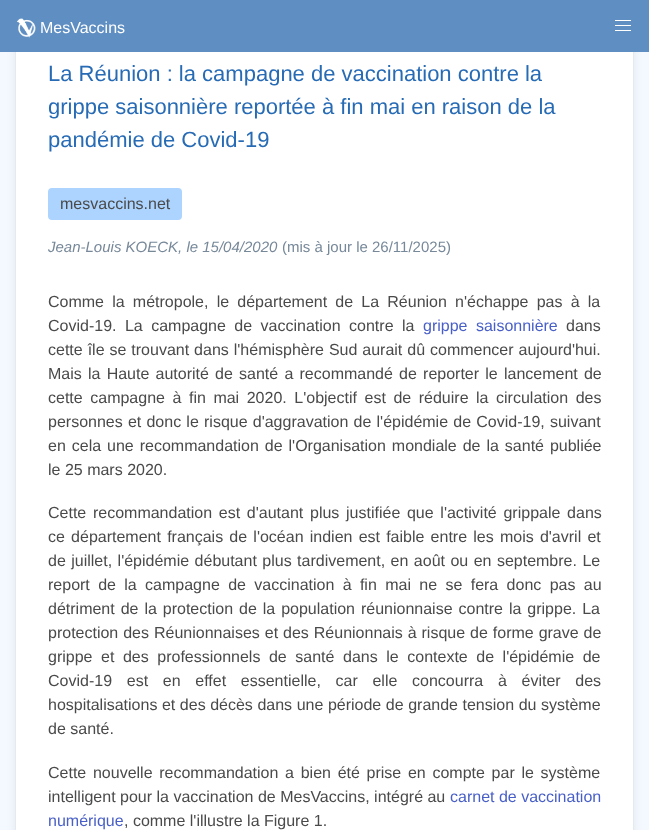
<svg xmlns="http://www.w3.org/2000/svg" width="649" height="830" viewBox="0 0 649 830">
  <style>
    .t1 { font: 16px Liberation Sans; fill: #fff; }
    .t2 { font: 22px Liberation Sans; fill: #276bb5; }
    .t3 { font: 16px Liberation Sans; fill: #4a4a4a; }
    .t4 { font: italic 15px Liberation Sans; fill: #789; }
    .t5 { font: 15px Liberation Sans; fill: #789; }
    .t6 { font: 16px Liberation Sans; fill: #485fc7; }
  </style>
  <rect width="100%" height="100%" fill="#f3f9ff"/>
  <rect x="15.5" y="24.5" width="618" height="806" fill="none" stroke="#eef4fa"/>
  <rect x="17" y="32" width="615" height="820" rx="5" fill="#0a0a0a1a" filter="blur(5.5px)"/>
  <rect x="0" y="0" width="649" height="52" fill="#5e8ec2"/>
  <image x="16" y="18" width="20" height="20" href="images/1.png"/>
  <text x="40" y="33" class="t1">MesVaccins</text>
  <rect x="615" y="20" width="16" height="1" fill="#fff"/>
  <rect x="615" y="25" width="16" height="1" fill="#fff"/>
  <rect x="615" y="30" width="16" height="1" fill="#fff"/>
  <rect x="16" y="52" width="617" height="778" fill="#fff"/>
  <text x="48" y="81" class="t2">La Réunion : la campagne de vaccination contre la</text>
  <text x="48" y="114" class="t2">grippe saisonnière reportée à fin mai en raison de la</text>
  <text x="48" y="147" class="t2">pandémie de Covid-19</text>
  <rect x="48" y="188" width="134" height="32" rx="4" fill="#acd4ff"/>
  <text x="60" y="209" class="t3">mesvaccins.net</text>
  <text x="48" y="252" class="t4">Jean-Louis KOECK, le 15/04/2020</text>
  <text x="282" y="252" class="t5">(mis à jour le 26/11/2025)</text>
  <text x="48" y="307" word-spacing="3.75" class="t3">Comme la métropole, le département de La Réunion n'échappe pas à la</text>
  <text x="48" y="331" word-spacing="4" class="t3">Covid-19. La campagne de vaccination contre la</text>
  <text x="423" y="331" word-spacing="4" class="t6">grippe saisonnière</text>
  <text x="566" y="331" class="t3">dans</text>
  <text x="48" y="355" word-spacing="0.5" class="t3">cette île se trouvant dans l'hémisphère Sud aurait dû commencer aujourd'hui.</text>
  <text x="48" y="379" word-spacing="1.75" class="t3">Mais la Haute autorité de santé a recommandé de reporter le lancement de</text>
  <text x="48" y="403" word-spacing="3.1" class="t3">cette campagne à fin mai 2020. L'objectif est de réduire la circulation des</text>
  <text x="48" y="427" word-spacing="0.75" class="t3">personnes et donc le risque d'aggravation de l'épidémie de Covid-19, suivant</text>
  <text x="48" y="451" word-spacing="1.5" class="t3">en cela une recommandation de l'Organisation mondiale de la santé publiée</text>
  <text x="48" y="475" class="t3">le 25 mars 2020.</text>
  <text x="48" y="518" word-spacing="2.25" class="t3">Cette recommandation est d'autant plus justifiée que l'activité grippale dans</text>
  <text x="48" y="542" word-spacing="1.75" class="t3">ce département français de l'océan indien est faible entre les mois d'avril et</text>
  <text x="48" y="566" word-spacing="1" class="t3">de juillet, l'épidémie débutant plus tardivement, en août ou en septembre. Le</text>
  <text x="48" y="590" word-spacing="3.9" class="t3">report de la campagne de vaccination à fin mai ne se fera donc pas au</text>
  <text x="48" y="614" word-spacing="1.5" class="t3">détriment de la protection de la population réunionnaise contre la grippe. La</text>
  <text x="48" y="638" word-spacing="0.5" class="t3">protection des Réunionnaises et des Réunionnais à risque de forme grave de</text>
  <text x="48" y="662" word-spacing="4.1" class="t3">grippe et des professionnels de santé dans le contexte de l'épidémie de</text>
  <text x="48" y="686" word-spacing="10.25" class="t3">Covid-19 est en effet essentielle, car elle concourra à éviter des</text>
  <text x="48" y="710" word-spacing="0.1" class="t3">hospitalisations et des décès dans une période de grande tension du système</text>
  <text x="48" y="734" class="t3">de santé.</text>
  <text x="48" y="778" word-spacing="2.25" class="t3">Cette nouvelle recommandation a bien été prise en compte par le système</text>
  <text x="48" y="802" class="t3">intelligent pour la vaccination de MesVaccins, intégré au</text>
  <text x="450" y="802" class="t6">carnet de vaccination</text>
  <text x="48" y="826" class="t6">numérique</text>
  <text x="124" y="826" class="t3">, comme l'illustre la Figure 1.</text>
</svg>
